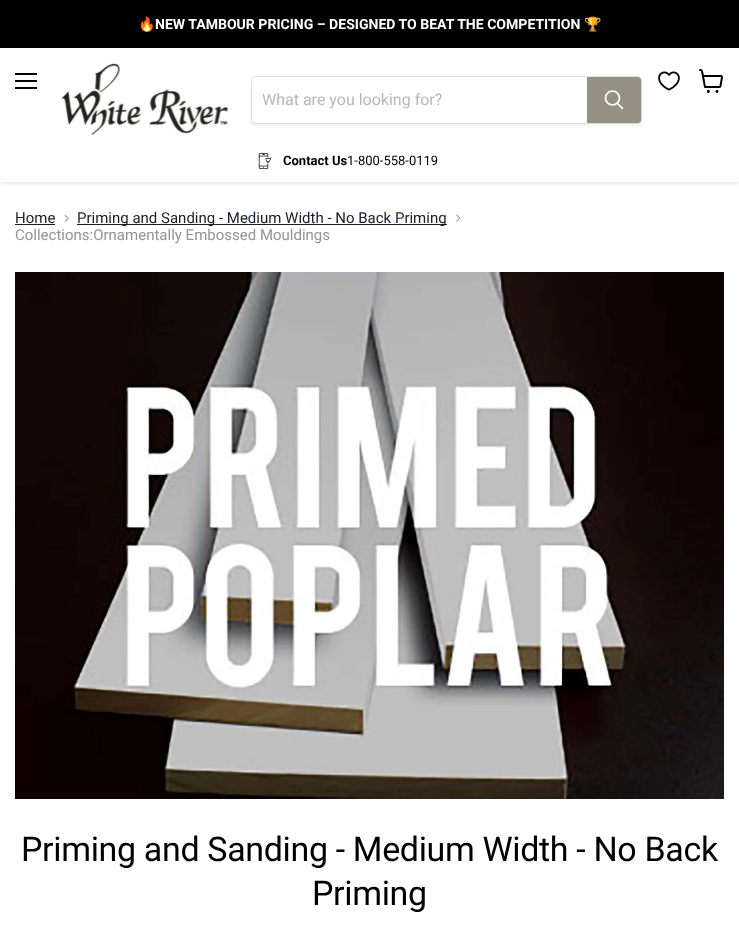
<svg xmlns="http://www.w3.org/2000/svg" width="739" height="926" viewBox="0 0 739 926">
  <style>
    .t1 { font: bold 14.05px Noto Color Emoji; fill: #fff; }
    .t2 { font: bold 14.05px Roboto; fill: #fff; }
    .t3 { font: 16px Roboto; fill: #b8b8b8; }
    .t4 { font: bold 13px Roboto; fill: #000; }
    .t5 { font: 13px Roboto; fill: #000; }
    .t6 { font: 15px Roboto; fill: #171f2b; }
    .t7 { font: 15px Roboto; fill: #949494; }
    .t8 { font: 34px Roboto; letter-spacing: -0.35px; fill: #000; }
  </style>
  <defs>
    <clipPath id="clip1"><rect x="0" y="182" width="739" height="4"/></clipPath>
  </defs>
  <rect width="100%" height="100%" fill="#fff"/>
  <g clip-path="url(#clip1)">
    <rect x="0" y="49" width="739" height="134" fill="#80808040" filter="blur(2px)"/>
  </g>
  <rect x="0" y="0" width="739" height="48" fill="#000"/>
  <text x="138" y="29" class="t1">🔥</text>
  <text x="155" y="29" class="t2">NEW TAMBOUR PRICING – DESIGNED TO BEAT THE COMPETITION</text>
  <text x="584" y="29" class="t1">🏆</text>
  <rect x="15" y="73" width="22" height="2" fill="#000"/>
  <rect x="15" y="80" width="22" height="2" fill="#000"/>
  <rect x="15" y="87" width="22" height="2" fill="#000"/>
  <image x="658" y="71" width="22" height="20" href="images/1.png"/>
  <image x="699" y="69" width="24" height="24" href="images/2.png"/>
  <image x="61" y="63" width="168" height="72" href="images/3.png"/>
  <rect x="251" y="78" width="391" height="48" rx="4" fill="#8080801c" filter="blur(1.5px)"/>
  <rect x="251.5" y="76.5" width="390" height="47" rx="3.5" fill="none" stroke="#80808033"/>
  <path d="M255 77H587V123H255C253.5 123 252 121.5 252 120V80C252 78.5 253.5 77 255 77Z" fill="#fff"/>
  <text x="262" y="105" class="t3">What are you looking for?</text>
  <path d="M587.5 77.5H638C639.5 77.5 640.5 78.5 640.5 80V120C640.5 121.5 639.5 122.5 638 122.5H587.5Z" fill="#959084" stroke="#959084"/>
  <path d="M622.5 108.5L617.5 103.5" fill="none" stroke="#fff" stroke-width="1.7" stroke-linecap="round"/>
  <circle cx="612.5" cy="98" r="7" fill="none" stroke="#fff" stroke-width="1.7"/>
  <image x="258" y="153" width="14" height="16" href="images/4.png"/>
  <text x="283" y="165" class="t4">Contact Us</text>
  <text x="347" y="165" class="t5">1-800-558-0119</text>
  <text x="15" y="223" class="t6">Home</text>
  <rect x="15" y="224" width="40" height="1" fill="#171f2b"/>
  <image x="64" y="215" width="5" height="7" href="images/5.png"/>
  <rect x="77" y="224" width="370" height="1" fill="#171f2b"/>
  <text x="77" y="223" class="t6">Priming and Sanding - Medium Width - No Back Priming</text>
  <image x="456" y="214" width="5" height="8" href="images/6.png"/>
  <text x="15" y="240" class="t7">Collections:Ornamentally Embossed Mouldings</text>
  <image x="15" y="272" width="709" height="527" href="images/7.png"/>
  <text x="21" y="861" class="t8">Priming and Sanding - Medium Width - No Back</text>
  <text x="312" y="905" class="t8">Priming</text>
</svg>
